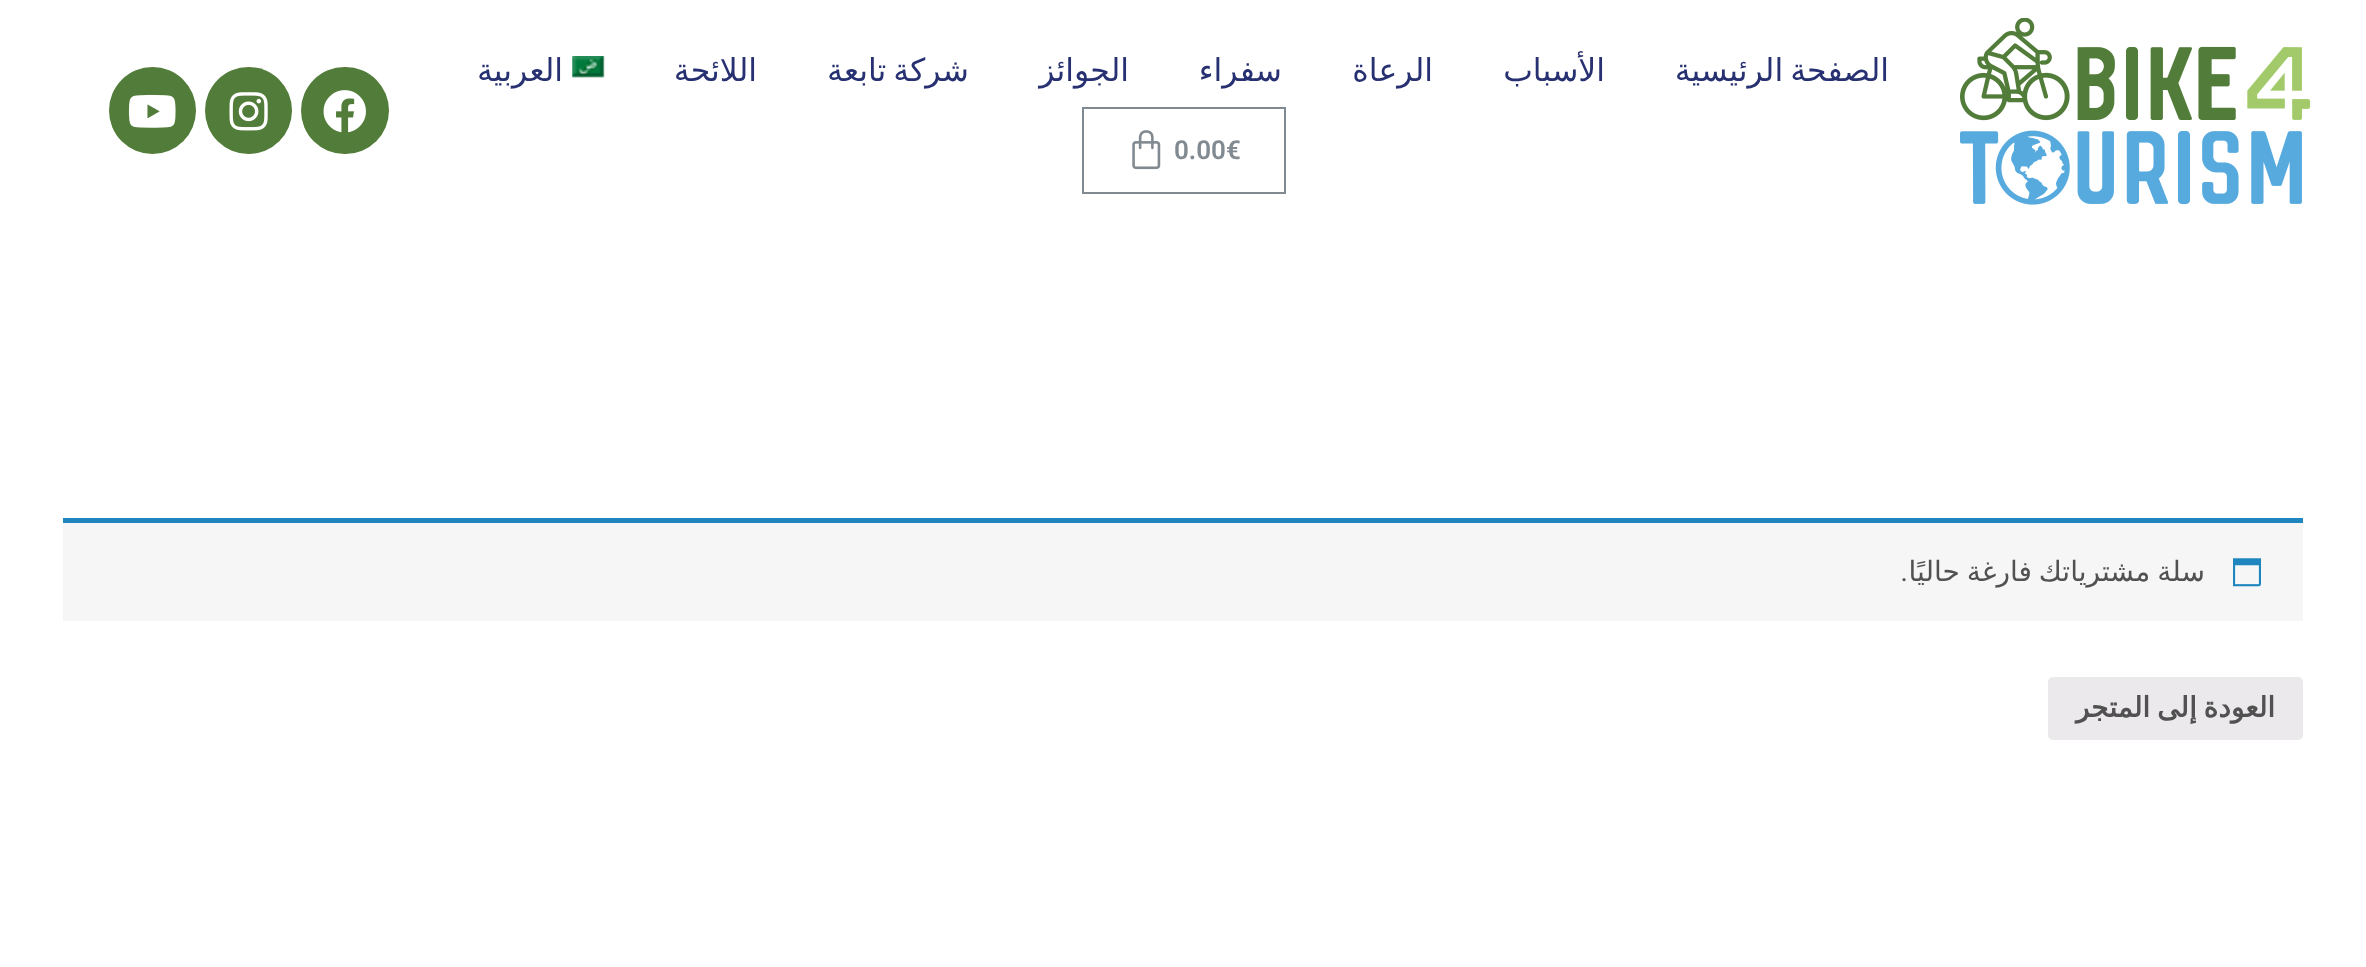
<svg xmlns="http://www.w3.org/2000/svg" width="2366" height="967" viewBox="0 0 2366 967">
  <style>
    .t1 { font: 31.5px DejaVu Sans; direction: rtl; fill: #273171; }
    .t2 { font: 600 26px Roboto; fill: #818a91; }
    .t3 { font: 28px DejaVu Sans; direction: rtl; fill: #515151; }
    .t4 { font: 28px Roboto; direction: rtl; fill: #515151; }
    .t5 { font: bold 28px DejaVu Sans; direction: rtl; fill: #515151; }
  </style>
  <rect width="100%" height="100%" fill="#fff"/>
  <image x="1960" y="18" width="350" height="187" href="images/1.png"/>
  <text x="1889" y="81" word-spacing="-3" class="t1">الصفحة الرئيسية</text>
  <text x="1605" y="81" class="t1">الأسباب</text>
  <text x="1433" y="81" class="t1">الرعاة</text>
  <text x="1282" y="81" class="t1">سفراء</text>
  <text x="1129" y="81" class="t1">الجوائز</text>
  <text x="969" y="81" word-spacing="-3" class="t1">شركة تابعة</text>
  <text x="757" y="81" class="t1">اللائحة</text>
  <image x="572" y="56" width="33" height="22" href="images/2.png"/>
  <text x="563" y="81" class="t1">العربية</text>
  <rect x="1083" y="108" width="202" height="85" fill="none" stroke="#818a91" stroke-width="2"/>
  <text x="1174" y="159" class="t2">0.00€</text>
  <image x="1132" y="130" width="29" height="40" href="images/3.png"/>
  <rect x="301" y="67" width="88" height="87" rx="43.5" fill="#527c39"/>
  <image x="323" y="90" width="43" height="43" href="images/4.png"/>
  <circle cx="248.5" cy="110.5" r="43.5" fill="#527c39"/>
  <image x="229" y="92" width="39" height="39" href="images/5.png"/>
  <circle cx="152.5" cy="110.5" r="43.5" fill="#527c39"/>
  <image x="128" y="94" width="48" height="34" href="images/6.png"/>
  <rect x="63" y="523" width="2240" height="98" fill="#f7f6f7"/>
  <rect x="63" y="518" width="2240" height="5" fill="#1e85be"/>
  <image x="2233" y="558" width="28" height="29" href="images/7.png"/>
  <text x="2205" y="581" word-spacing="-2" class="t3">سلة مشترياتك فارغة حاليًا</text>
  <text x="1908" y="581" class="t4">.</text>
  <rect x="2048" y="677" width="255" height="63" rx="5" fill="#ebe9eb"/>
  <text x="2275" y="717" word-spacing="-2" class="t5">العودة إلى المتجر</text>
</svg>
